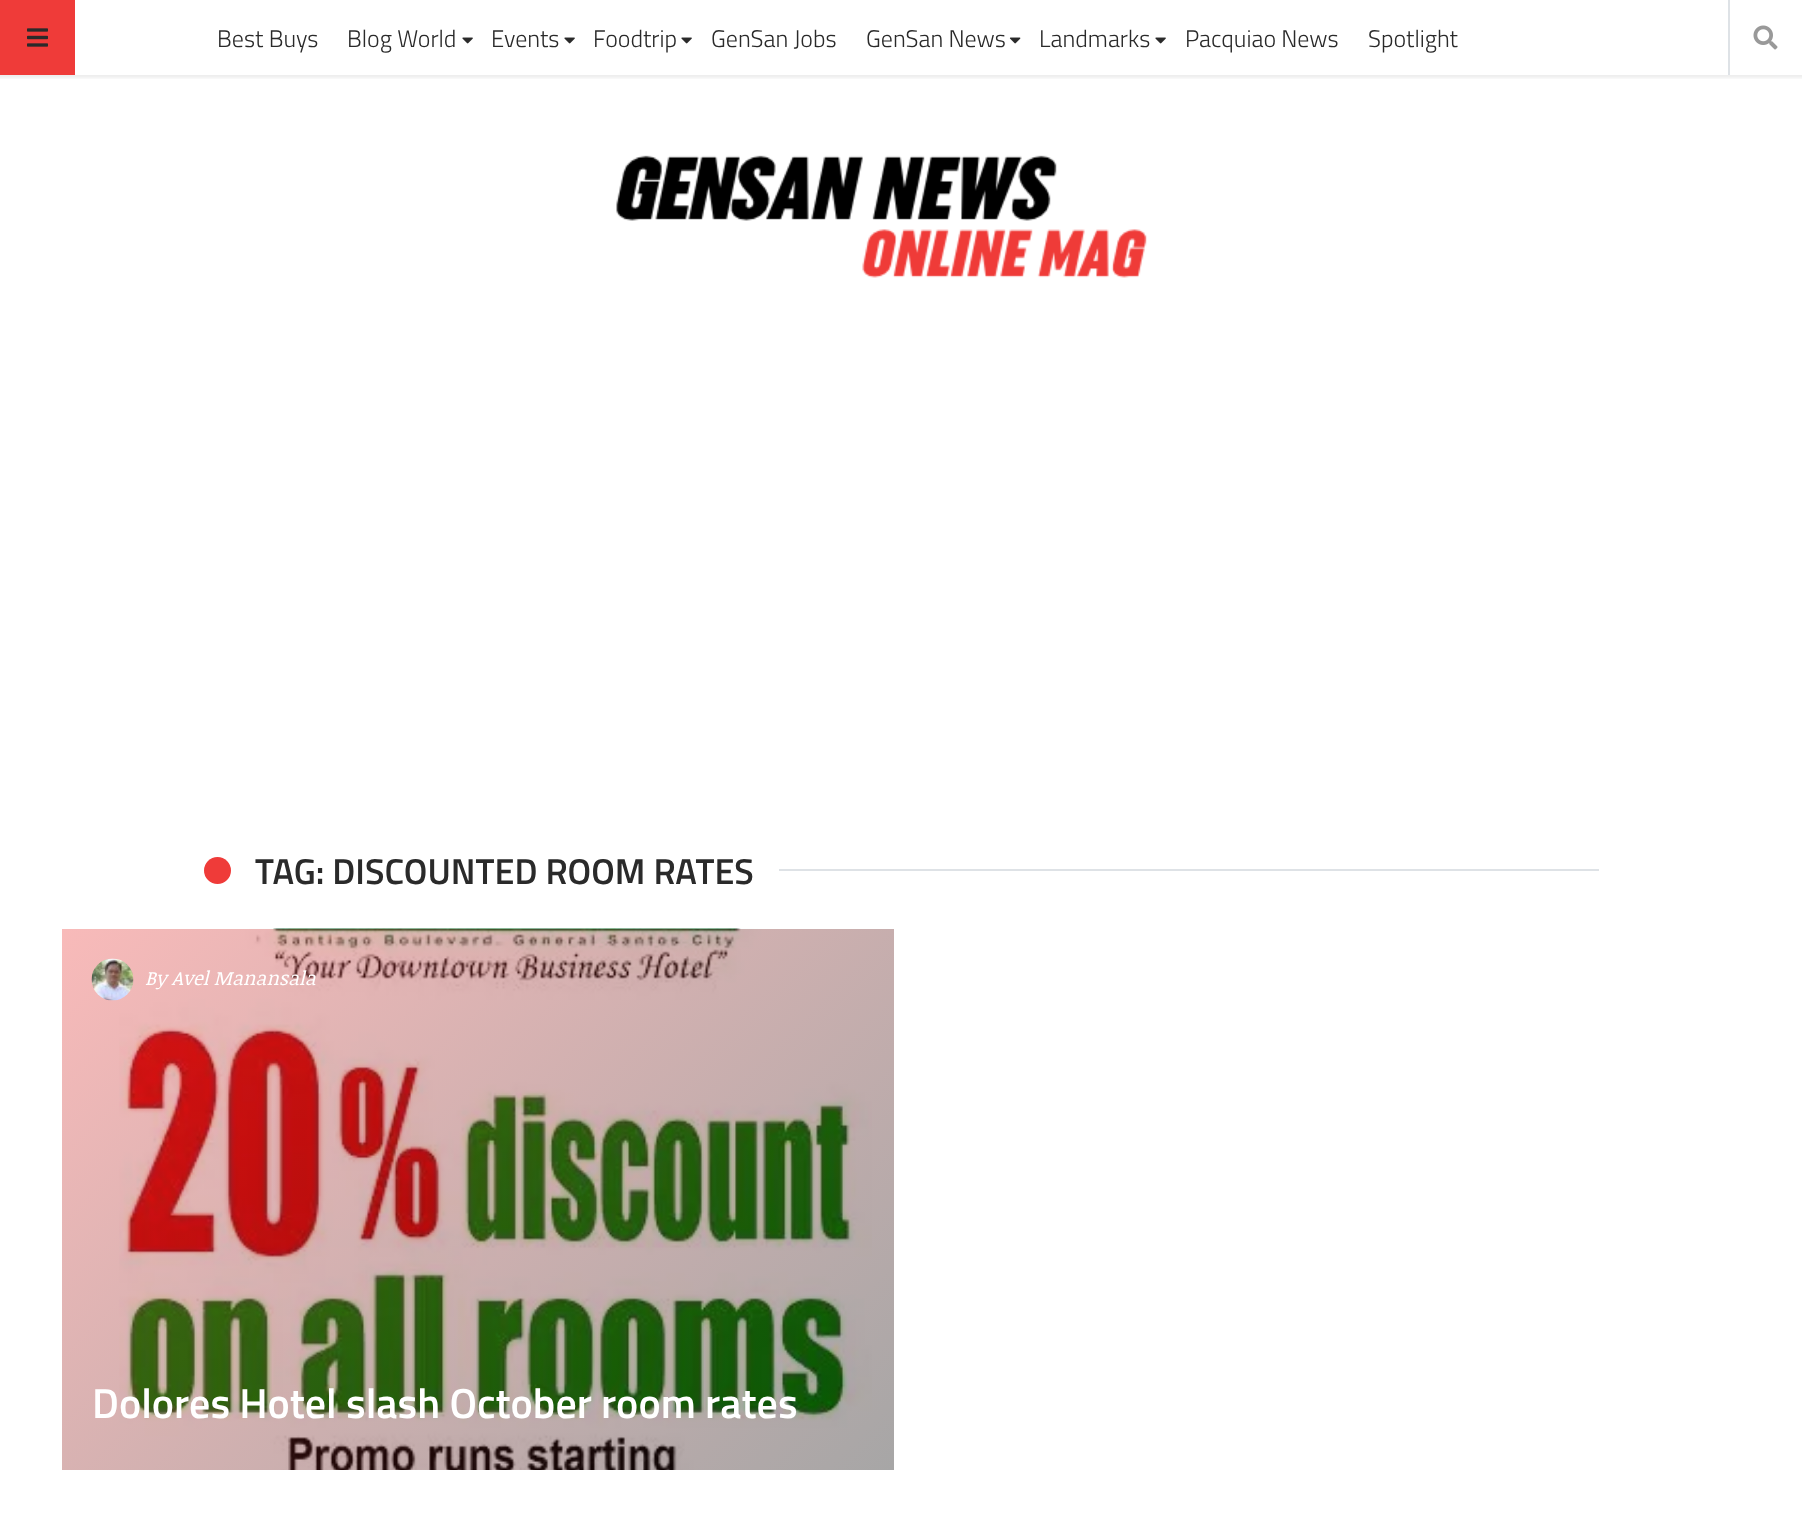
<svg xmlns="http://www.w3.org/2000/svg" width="1802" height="1531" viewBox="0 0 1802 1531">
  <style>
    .t1 { font: 300 24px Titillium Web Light; fill: #2a2a2a; }
    .t2 { font: 600 36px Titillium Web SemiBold; fill: #2a2a2a; }
    .t3 { font: italic 19.25px Noticia Text; fill: #fff; }
    .t4 { font: 600 42px Titillium Web SemiBold; fill: #fff; }
  </style>
  <defs>
    <clipPath id="clip1"><rect x="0" y="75" width="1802" height="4"/></clipPath>
    <linearGradient id="g1" gradientUnits="userSpaceOnUse" x1="830" y1="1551" x2="126" y2="847"><stop offset="0" stop-color="#000" stop-opacity="0.35"/><stop offset="1" stop-color="#ef3b39" stop-opacity="0.35"/></linearGradient>
  </defs>
  <rect width="100%" height="100%" fill="#fff"/>
  <g clip-path="url(#clip1)">
    <rect x="-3" y="-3" width="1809" height="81" fill="#00000012" filter="blur(1.5px)"/>
  </g>
  <rect x="0" y="0" width="75" height="75" fill="#ef3b39"/>
  <image x="27" y="28" width="21" height="19" href="images/1.png"/>
  <text x="217" y="47" class="t1">Best Buys</text>
  <text x="347" y="47" class="t1">Blog World</text>
  <image x="462" y="37" width="11" height="7" href="images/2.png"/>
  <text x="491" y="47" class="t1">Events</text>
  <image x="564" y="37" width="11" height="7" href="images/2.png"/>
  <text x="593" y="47" class="t1">Foodtrip</text>
  <image x="681" y="37" width="11" height="7" href="images/2.png"/>
  <text x="711" y="47" class="t1">GenSan Jobs</text>
  <text x="866" y="47" class="t1">GenSan News</text>
  <image x="1009" y="37" width="12" height="7" href="images/3.png"/>
  <text x="1039" y="47" class="t1">Landmarks</text>
  <image x="1155" y="37" width="11" height="7" href="images/2.png"/>
  <text x="1185" y="47" class="t1">Pacquiao News</text>
  <text x="1368" y="47" class="t1">Spotlight</text>
  <rect x="1728" y="0" width="2" height="75" fill="#dee2e6"/>
  <image x="1753" y="25" width="25" height="25" href="images/4.png"/>
  <image x="616" y="155" width="531" height="123" href="images/5.png"/>
  <circle cx="217.5" cy="870.5" r="13.5" fill="#ef3b39"/>
  <text x="255" y="884" class="t2">TAG: DISCOUNTED ROOM RATES</text>
  <rect x="779" y="869" width="820" height="2" fill="#dee2e6"/>
  <image x="119" y="928" width="753" height="542" href="images/6.png"/>
  <rect x="62" y="929" width="832" height="541" fill="url(#g1)"/>
  <image x="91" y="958" width="43" height="43" href="images/7.png"/>
  <text x="145" y="985" class="t3">By Avel Manansala</text>
  <text x="92" y="1418" class="t4">Dolores Hotel slash October room rates</text>
</svg>
